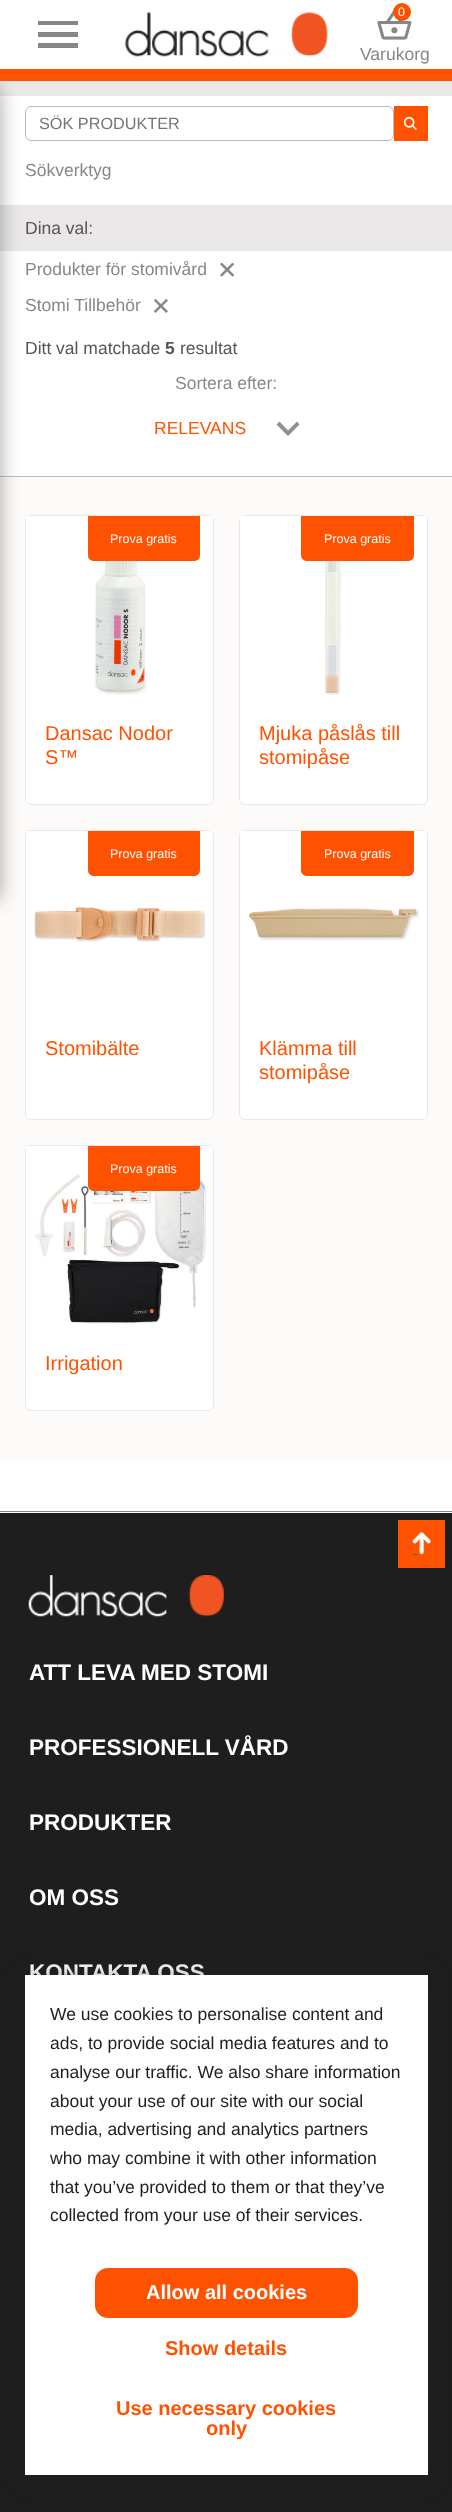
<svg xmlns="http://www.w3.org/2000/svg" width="452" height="2512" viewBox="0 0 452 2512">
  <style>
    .t1 { font: 12.5px Liberation Sans; fill: #fff; }
    .t2 { font: 17.5px Liberation Sans; fill: #878785; }
    .t3 { font: 16.25px Liberation Sans; fill: #757575; }
    .t4 { font: 17.5px Liberation Sans; fill: #585458; }
    .t5 { font: bold 17.5px Liberation Sans; fill: #585458; }
    .t6 { font: 17.5px Liberation Sans; fill: #ff5200; }
    .t7 { font: 20px Liberation Sans; fill: #ff5200; }
    .t8 { font: bold 22.5px Liberation Sans; fill: #fff; }
    .t9 { font: 17.5px Liberation Sans; fill: #1e1e1e; }
    .t10 { font: bold 20px Liberation Sans; fill: #fff; }
    .t11 { font: bold 20px Liberation Sans; fill: #ff5200; }
  </style>
  <rect width="100%" height="100%" fill="#fff"/>
  <rect x="0" y="81" width="452" height="15" fill="#ebe9e8"/>
  <rect x="25.5" y="106.5" width="368" height="34" rx="5.5" fill="none" stroke="#bcbbbc"/>
  <rect x="0" y="205" width="452" height="46" fill="#e9e7e7"/>
  <rect x="0" y="476" width="452" height="1" fill="#bcbbbc"/>
  <rect x="0" y="478" width="452" height="983" fill="#fcfbf9"/>
  <rect x="25.5" y="515.5" width="188" height="289" rx="5.5" fill="#fff" stroke="#e9e7e7"/>
  <image x="26" y="516" width="187" height="179" href="images/6.png"/>
  <rect x="25.5" y="830.5" width="188" height="289" rx="5.5" fill="#fff" stroke="#e9e7e7"/>
  <image x="26" y="831" width="187" height="111" href="images/8.png"/>
  <rect x="-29" y="88" width="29" height="811" fill="#24242466" filter="blur(9.5px)"/>
  <rect x="0" y="69" width="452" height="12" fill="#ff5200"/>
  <path d="M38 48H78V43H38ZM38 37H78V32H38ZM38 21V25H78V21Z" fill="#878785"/>
  <image x="125" y="12" width="203" height="45" href="images/1.png"/>
  <image x="377" y="10" width="35" height="30" href="images/2.png"/>
  <circle cx="402" cy="12" r="9" fill="#ff5200"/>
  <text x="398" y="16" class="t1">0</text>
  <text x="360" y="60" class="t2">Varukorg</text>
  <text x="39" y="129" class="t3">SÖK PRODUKTER</text>
  <rect x="394" y="106" width="34" height="35" fill="#ff5200"/>
  <image x="404" y="116" width="13" height="14" href="images/3.png"/>
  <text x="25" y="176" class="t2">Sökverktyg</text>
  <text x="25" y="234" class="t4">Dina val:</text>
  <text x="25" y="275" class="t2">Produkter för stomivård</text>
  <image x="220" y="263" width="15" height="14" href="images/4.png"/>
  <text x="25" y="311" class="t2">Stomi Tillbehör</text>
  <image x="154" y="299" width="14" height="14" href="images/5.png"/>
  <text x="25" y="354" class="t4">Ditt val matchade</text>
  <text x="165" y="354" class="t5">5</text>
  <text x="180" y="354" class="t4">resultat</text>
  <text x="175" y="389" class="t2">Sortera efter:</text>
  <path d="M279.5 421.5L276.5 424.5L288 436L299.5 424.5L297 421.5L288 430.5Z" fill="#919191"/>
  <text x="154" y="434" class="t6">RELEVANS</text>
  <path d="M88 516H200V555C200 558.5 197.5 561 194 561H94C90.5 561 88 558.5 88 555Z" fill="#ff5200"/>
  <text x="110" y="543" class="t1">Prova gratis</text>
  <text x="45" y="740" class="t7">Dansac Nodor</text>
  <text x="45" y="764" class="t7">S™</text>
  <rect x="239.5" y="515.5" width="188" height="289" rx="5.5" fill="#fff" stroke="#e9e7e7"/>
  <image x="240" y="516" width="187" height="179" href="images/7.png"/>
  <path d="M301 516H414V555C414 558.5 411.5 561 408 561H307C303.5 561 301 558.5 301 555Z" fill="#ff5200"/>
  <text x="324" y="543" class="t1">Prova gratis</text>
  <text x="259" y="740" class="t7">Mjuka påslås till</text>
  <text x="259" y="764" class="t7">stomipåse</text>
  <path d="M88 831H200V870C200 873.5 197.5 876 194 876H94C90.5 876 88 873.5 88 870Z" fill="#ff5200"/>
  <text x="110" y="858" class="t1">Prova gratis</text>
  <text x="45" y="1055" class="t7">Stomibälte</text>
  <rect x="239.5" y="830.5" width="188" height="289" rx="5.5" fill="#fff" stroke="#e9e7e7"/>
  <image x="240" y="831" width="187" height="110" href="images/9.png"/>
  <path d="M301 831H414V870C414 873.5 411.5 876 408 876H307C303.5 876 301 873.5 301 870Z" fill="#ff5200"/>
  <text x="324" y="858" class="t1">Prova gratis</text>
  <text x="259" y="1055" class="t7">Klämma till</text>
  <text x="259" y="1079" class="t7">stomipåse</text>
  <rect x="25.5" y="1145.5" width="188" height="265" rx="5.5" fill="#fff" stroke="#e9e7e7"/>
  <image x="26" y="1146" width="187" height="178" href="images/10.png"/>
  <path d="M88 1146H200V1185C200 1188.5 197.5 1191 194 1191H94C90.5 1191 88 1188.5 88 1185Z" fill="#ff5200"/>
  <text x="110" y="1173" class="t1">Prova gratis</text>
  <text x="45" y="1370" class="t7">Irrigation</text>
  <rect x="0" y="1513" width="452" height="999" fill="#1e1e1e"/>
  <rect x="0" y="1511" width="452" height="1" fill="#878785"/>
  <rect x="398" y="1520" width="47" height="48" fill="#ff5200"/>
  <image x="412" y="1532" width="19" height="23" href="images/11.png"/>
  <image x="28" y="1575" width="196" height="42" href="images/12.png"/>
  <text x="29" y="1680" class="t8">ATT LEVA MED STOMI</text>
  <text x="29" y="1755" class="t8">PROFESSIONELL VÅRD</text>
  <text x="29" y="1830" class="t8">PRODUKTER</text>
  <text x="29" y="1905" class="t8">OM OSS</text>
  <text x="29" y="1980" class="t8">KONTAKTA OSS</text>
  <rect x="25" y="1978" width="403" height="500" fill="#21212180" filter="blur(12.5px)"/>
  <rect x="25" y="1975" width="403" height="500" fill="#fff"/>
  <text x="50" y="2020" class="t9">We use cookies to personalise content and</text>
  <text x="50" y="2049" class="t9">ads, to provide social media features and to</text>
  <text x="50" y="2078" class="t9">analyse our traffic. We also share information</text>
  <text x="50" y="2107" class="t9">about your use of our site with our social</text>
  <text x="50" y="2135" class="t9">media, advertising and analytics partners</text>
  <text x="50" y="2164" class="t9">who may combine it with other information</text>
  <text x="50" y="2193" class="t9">that you’ve provided to them or that they’ve</text>
  <text x="50" y="2221" class="t9">collected from your use of their services.</text>
  <rect x="95" y="2268" width="263" height="50" rx="13" fill="#ff5200"/>
  <text x="146" y="2299" class="t10">Allow all cookies</text>
  <text x="165" y="2355" class="t11">Show details</text>
  <text x="116" y="2415" class="t11">Use necessary cookies</text>
  <text x="206" y="2435" class="t11">only</text>
</svg>
